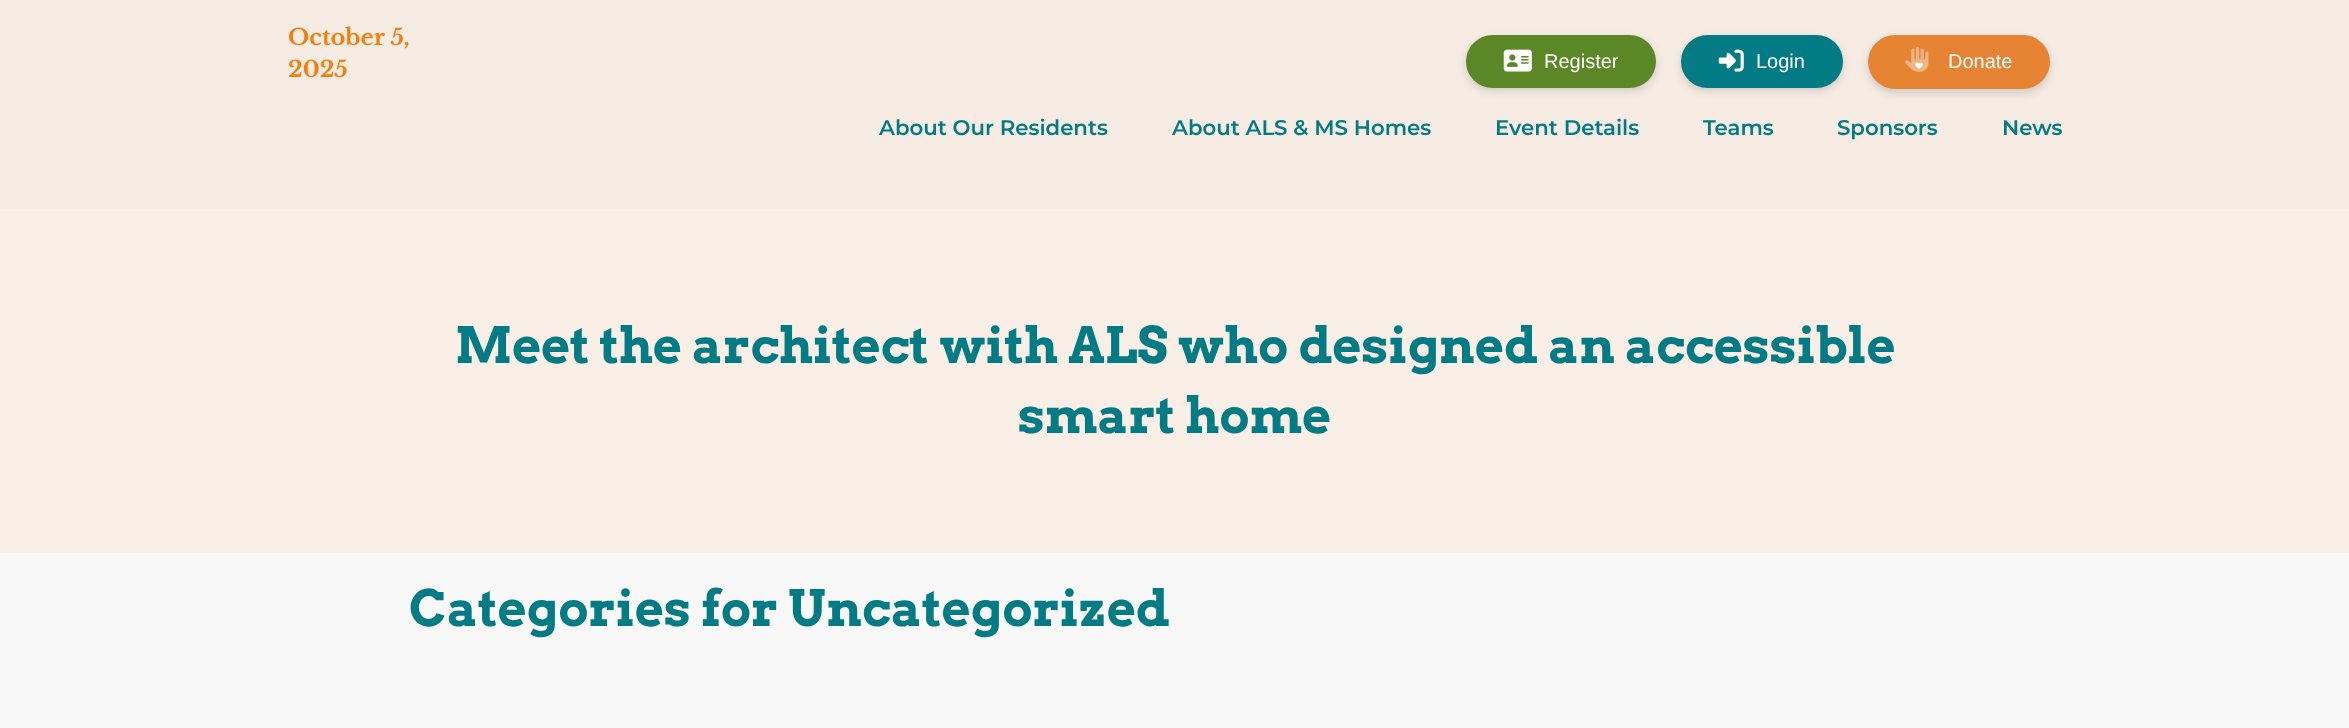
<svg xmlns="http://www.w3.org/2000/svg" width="2349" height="728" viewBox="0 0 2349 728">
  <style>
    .t1 { font: bold 22.5px Libre Baskerville; fill: #f77e0b; }
    .t2 { font: 20px Liberation Sans; fill: #fff; }
    .t3 { font: 600 21.25px Montserrat; fill: #037b85; }
    .t4 { font: bold 50px Arvo; fill: #037b85; }
  </style>
  <rect width="100%" height="100%" fill="#f8f8f8"/>
  <rect x="0" y="0" width="2349" height="209" fill="#f6ece4"/>
  <text x="288" y="45" class="t1">October 5,</text>
  <text x="288" y="77" class="t1">2025</text>
  <rect x="1466" y="39" width="190" height="52" rx="26" fill="#00000026" filter="blur(4px)"/>
  <rect x="1466" y="35" width="190" height="53" rx="26.5" fill="#5c8727"/>
  <image x="1503" y="49" width="29" height="23" href="images/1.png"/>
  <text x="1544" y="68" class="t2">Register</text>
  <rect x="1681" y="39" width="162" height="52" rx="26" fill="#00000026" filter="blur(4px)"/>
  <rect x="1681" y="35" width="162" height="53" rx="26.5" fill="#037b85"/>
  <image x="1718" y="49" width="26" height="23" href="images/2.png"/>
  <text x="1756" y="68" class="t2">Login</text>
  <rect x="1868" y="39" width="182" height="54" rx="27" fill="#00000026" filter="blur(4px)"/>
  <rect x="1868" y="35" width="182" height="54" rx="27" fill="#e78434"/>
  <image x="1915" y="62" width="8" height="7" href="images/4.png"/>
  <image x="1905" y="46" width="24" height="26" href="images/3.png"/>
  <text x="1948" y="68" class="t2">Donate</text>
  <text x="879" y="135" class="t3">About Our Residents</text>
  <text x="1172" y="135" class="t3">About ALS &amp; MS Homes</text>
  <text x="1495" y="135" class="t3">Event Details</text>
  <text x="1703" y="135" class="t3">Teams</text>
  <text x="1837" y="135" class="t3">Sponsors</text>
  <text x="2002" y="135" class="t3">News</text>
  <rect x="0" y="209" width="2349" height="344" fill="#f9efe7"/>
  <text x="455" y="363" class="t4">Meet the architect with ALS who designed an accessible</text>
  <text x="1018" y="433" class="t4">smart home</text>
  <text x="409" y="626" class="t4">Categories for Uncategorized</text>
</svg>
